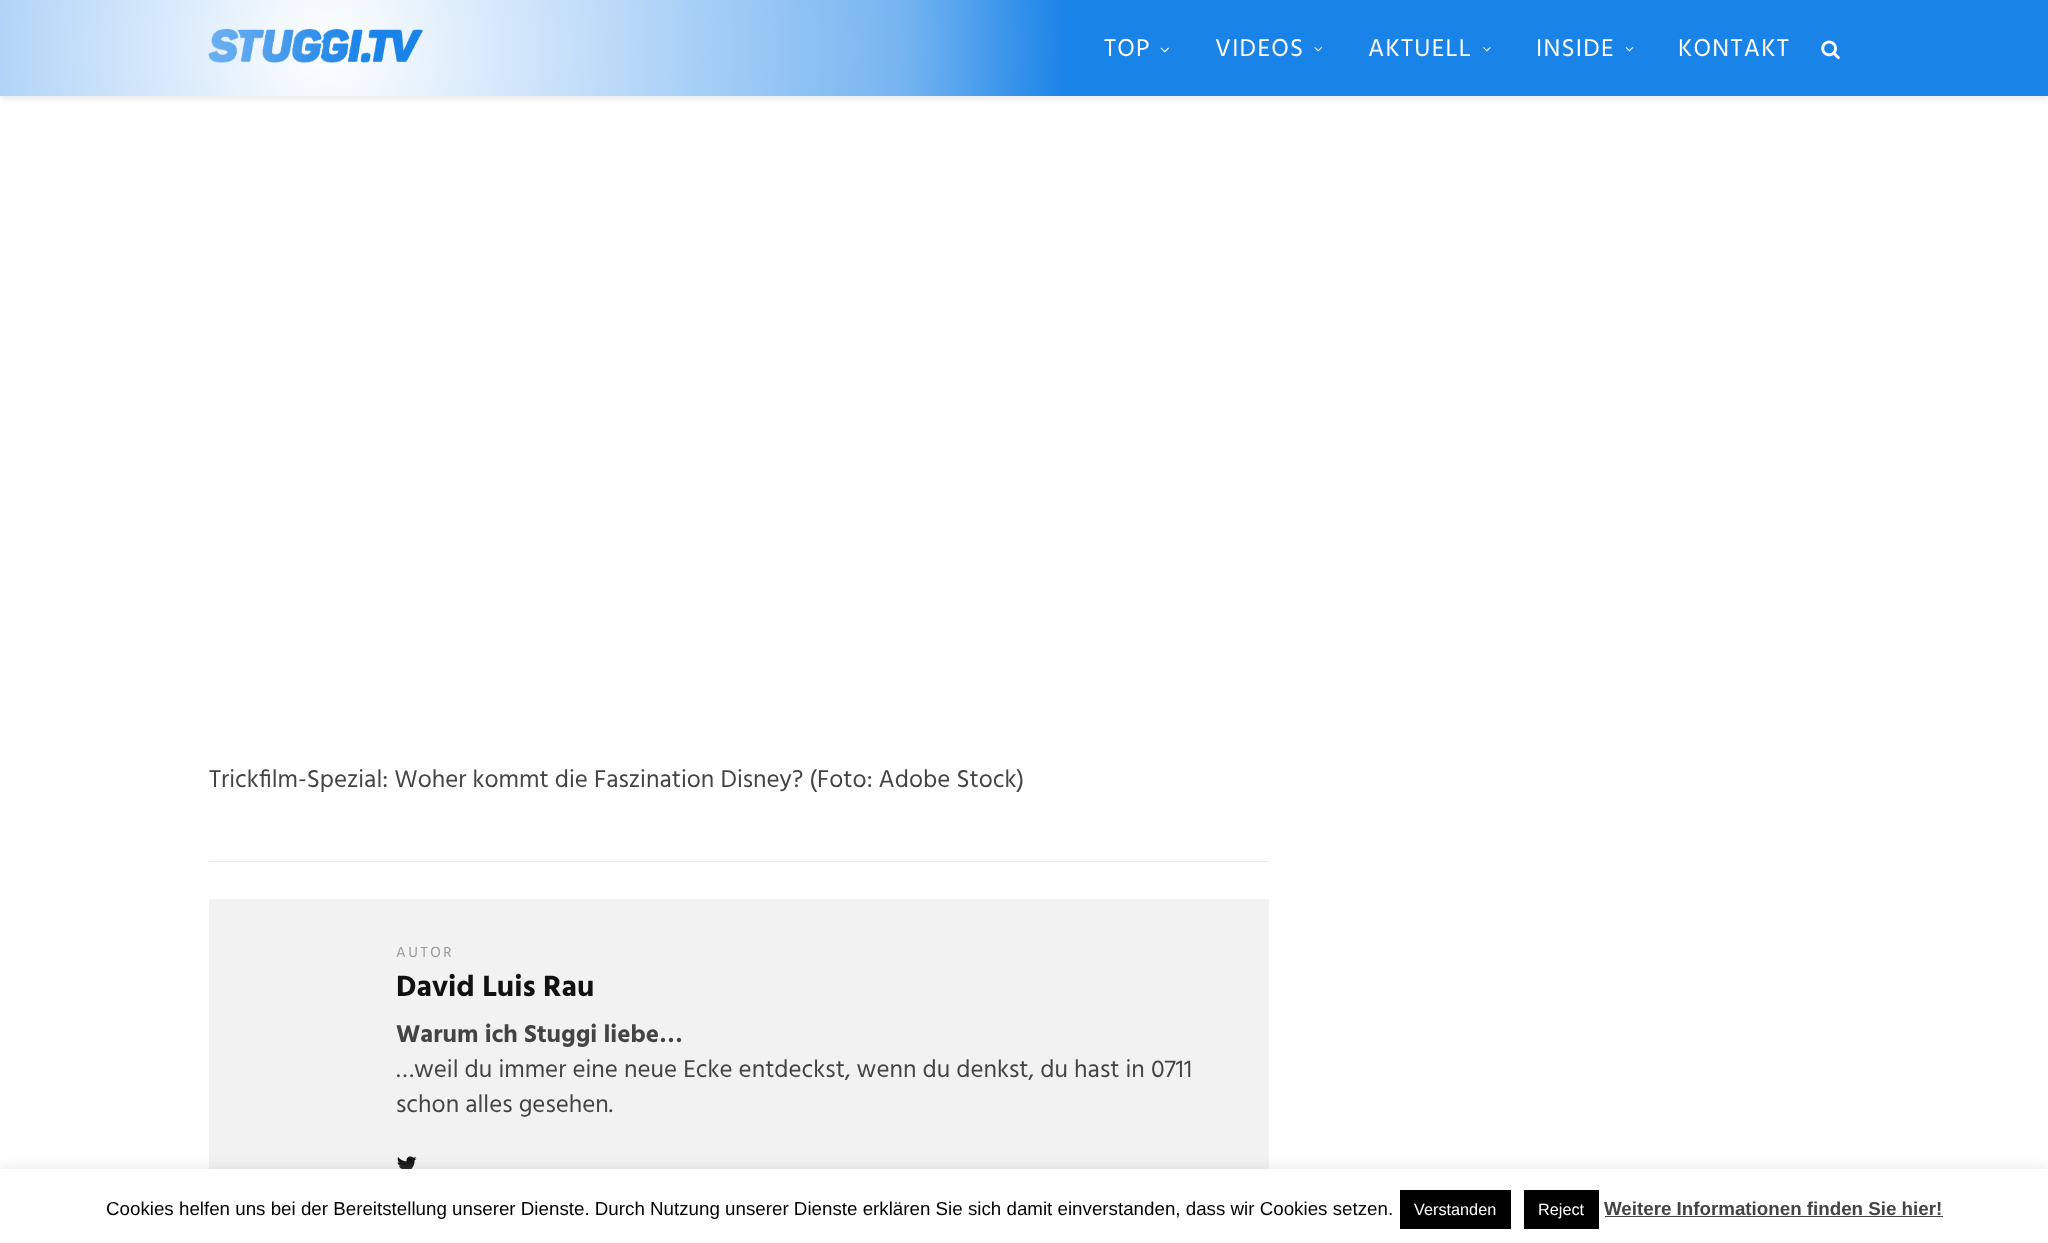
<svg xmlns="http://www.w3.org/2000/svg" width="2048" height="1243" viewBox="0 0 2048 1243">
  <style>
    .t1 { font: 25px Hind; letter-spacing: 1.25px; fill: #fff; }
    .t2 { font: 25px Hind; fill: #444; }
    .t3 { font: 15px Hind; letter-spacing: 2.5px; fill: #999; }
    .t4 { font: bold 30px Hind; fill: #111; }
    .t5 { font: bold 25px Hind; fill: #444; }
    .t6 { font: 18.75px Liberation Sans; fill: #000; }
    .t7 { font: 16.25px Liberation Sans; fill: #fff; }
    .t8 { font: bold 18.75px Liberation Sans; fill: #444; }
  </style>
  <defs>
    <radialGradient id="g1" gradientUnits="userSpaceOnUse" cx="328" cy="48" r="821"><stop offset="0" stop-color="#fff"/><stop offset="0.7" stop-color="#76b5f1"/><stop offset="0.9" stop-color="#1a83e8"/><stop offset="1" stop-color="#1a83e8"/></radialGradient>
  </defs>
  <rect width="100%" height="100%" fill="#fff"/>
  <rect x="0" y="1" width="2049" height="97" fill="#bebebe33" filter="blur(3px)"/>
  <rect x="0" y="1" width="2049" height="97" fill="#bebebe33" filter="blur(3px)"/>
  <rect x="1148" y="0" width="900" height="96" fill="#1a83e8"/>
  <rect x="0" y="0" width="1148" height="96" fill="url(#g1)"/>
  <image x="208" y="29" width="215" height="34" href="images/1.png"/>
  <text x="1104" y="56" class="t1">TOP</text>
  <image x="1160" y="47" width="9" height="6" href="images/2.png"/>
  <text x="1215" y="56" class="t1">VIDEOS</text>
  <image x="1314" y="47" width="8" height="5" href="images/3.png"/>
  <text x="1368" y="56" class="t1">AKTUELL</text>
  <image x="1483" y="47" width="8" height="5" href="images/4.png"/>
  <text x="1536" y="56" class="t1">INSIDE</text>
  <image x="1625" y="47" width="9" height="5" href="images/5.png"/>
  <text x="1678" y="56" class="t1">KONTAKT</text>
  <image x="1821" y="40" width="19" height="20" href="images/6.png"/>
  <text x="209" y="787" class="t2">Trickfilm-Spezial: Woher kommt die Faszination Disney? (Foto: Adobe Stock)</text>
  <rect x="209" y="861" width="1060" height="1" fill="#ebebeb"/>
  <rect x="209" y="899" width="1060" height="270" fill="#f2f2f2"/>
  <text x="396" y="957" class="t3">AUTOR</text>
  <text x="396" y="996" class="t4">David Luis Rau</text>
  <text x="396" y="1042" class="t5">Warum ich Stuggi liebe…</text>
  <text x="396" y="1077" class="t2">…weil du immer eine neue Ecke entdeckst, wenn du denkst, du hast in 0711</text>
  <text x="396" y="1112" class="t2">schon alles gesehen.</text>
  <image x="397" y="1156" width="20" height="13" href="images/7.png"/>
  <rect x="0" y="1168" width="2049" height="75" fill="#acabab4d" filter="blur(6px)"/>
  <rect x="0" y="1169" width="2048" height="74" fill="#fff"/>
  <text x="106" y="1215" class="t6">Cookies helfen uns bei der Bereitstellung unserer Dienste. Durch Nutzung unserer Dienste erklären Sie sich damit einverstanden, dass wir Cookies setzen.</text>
  <rect x="1400" y="1190" width="111" height="39" fill="#000"/>
  <text x="1414" y="1215" class="t7">Verstanden</text>
  <rect x="1524" y="1190" width="75" height="39" fill="#000"/>
  <text x="1538" y="1215" class="t7">Reject</text>
  <text x="1604" y="1215" class="t8">Weitere Informationen finden Sie hier!</text>
  <rect x="1605" y="1216" width="338" height="1" fill="#444"/>
</svg>
